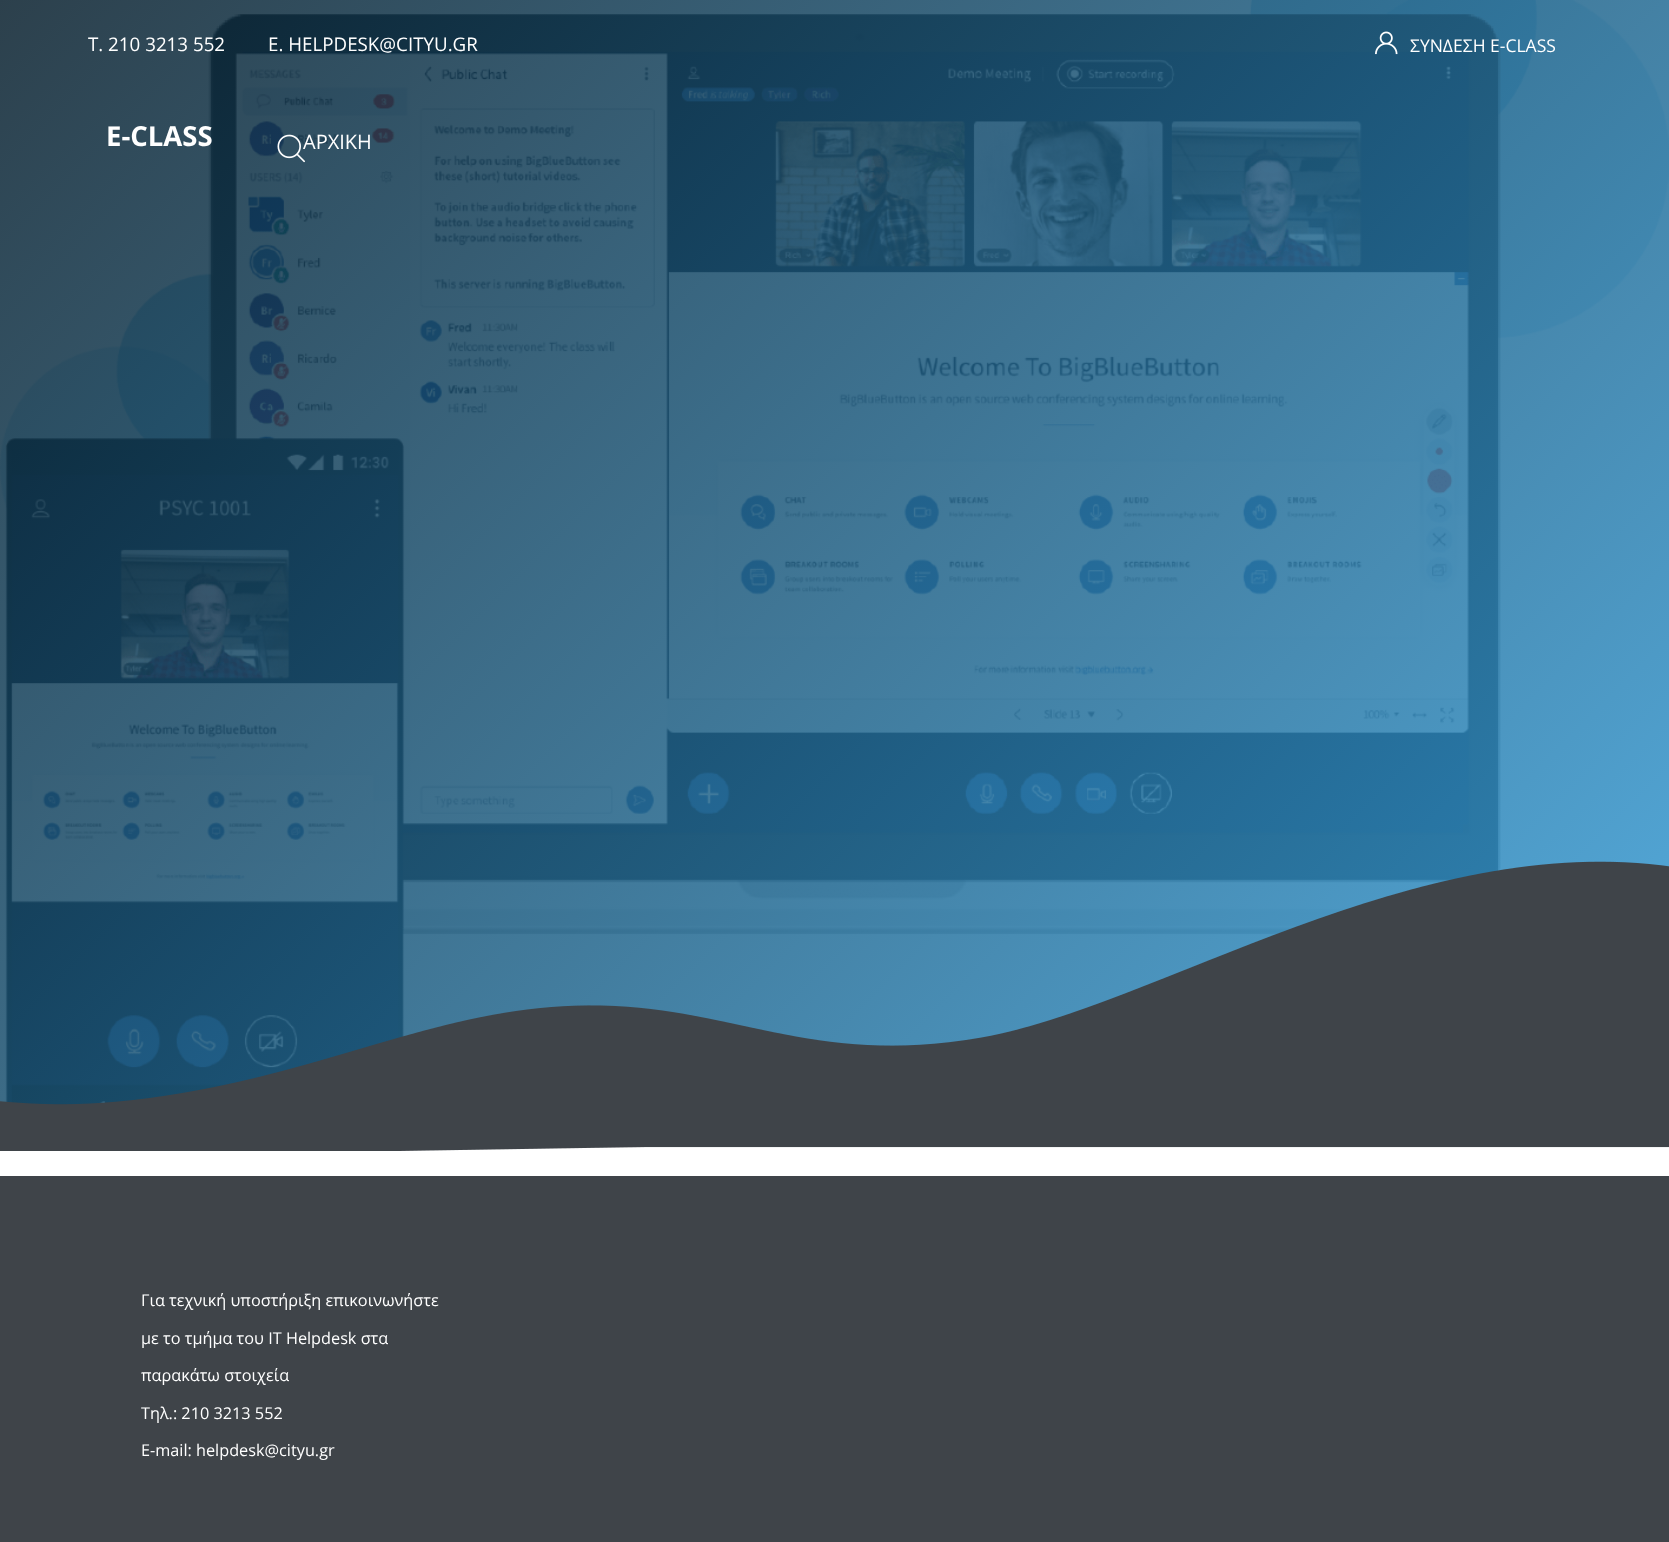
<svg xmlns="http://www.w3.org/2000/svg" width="1669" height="1542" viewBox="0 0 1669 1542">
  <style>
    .t1 { font: 18.75px Open Sans; fill: #fff; }
    .t2 { font: 17.5px Open Sans; fill: #fff; }
    .t3 { font: bold 27.5px Open Sans; fill: #fff; }
    .t4 { font: 20px Open Sans; fill: #fff; }
    .t5 { font: 16.25px Open Sans; fill: #fff; }
  </style>
  <defs>
    <linearGradient id="g1" gradientUnits="userSpaceOnUse" x1="1567" y1="1242" x2="103" y2="-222"><stop offset="0" stop-color="#369fdb" stop-opacity="0.85"/><stop offset="1" stop-color="#051925" stop-opacity="0.85"/></linearGradient>
  </defs>
  <rect width="100%" height="100%" fill="#fff"/>
  <image x="0" y="0" width="1669" height="1105" href="images/1.png"/>
  <rect x="0" y="0" width="1669" height="1105" fill="url(#g1)"/>
  <image x="0" y="861" width="1669" height="290" href="images/2.png"/>
  <text x="88" y="51" class="t1">T. 210 3213 552</text>
  <text x="268" y="51" class="t1">Ε. HELPDESK@CITYU.GR</text>
  <image x="1375" y="31" width="23" height="24" href="images/3.png"/>
  <text x="1410" y="52" class="t2">ΣΥΝΔΕΣΗ E-CLASS</text>
  <text x="106" y="146" class="t3">E-CLASS</text>
  <image x="277" y="134" width="28" height="29" href="images/4.png"/>
  <text x="303" y="149" class="t4">ΑΡΧΙΚΗ</text>
  <rect x="0" y="1176" width="1669" height="366" fill="#3f4449"/>
  <text x="141" y="1306" class="t5">Για τεχνική υποστήριξη επικοινωνήστε</text>
  <text x="141" y="1344" class="t5">με το τμήμα του IT Helpdesk στα</text>
  <text x="141" y="1381" class="t5">παρακάτω στοιχεία</text>
  <text x="141" y="1419" class="t5">Τηλ.: 210 3213 552</text>
  <text x="141" y="1456" class="t5">E-mail: helpdesk@cityu.gr</text>
</svg>
